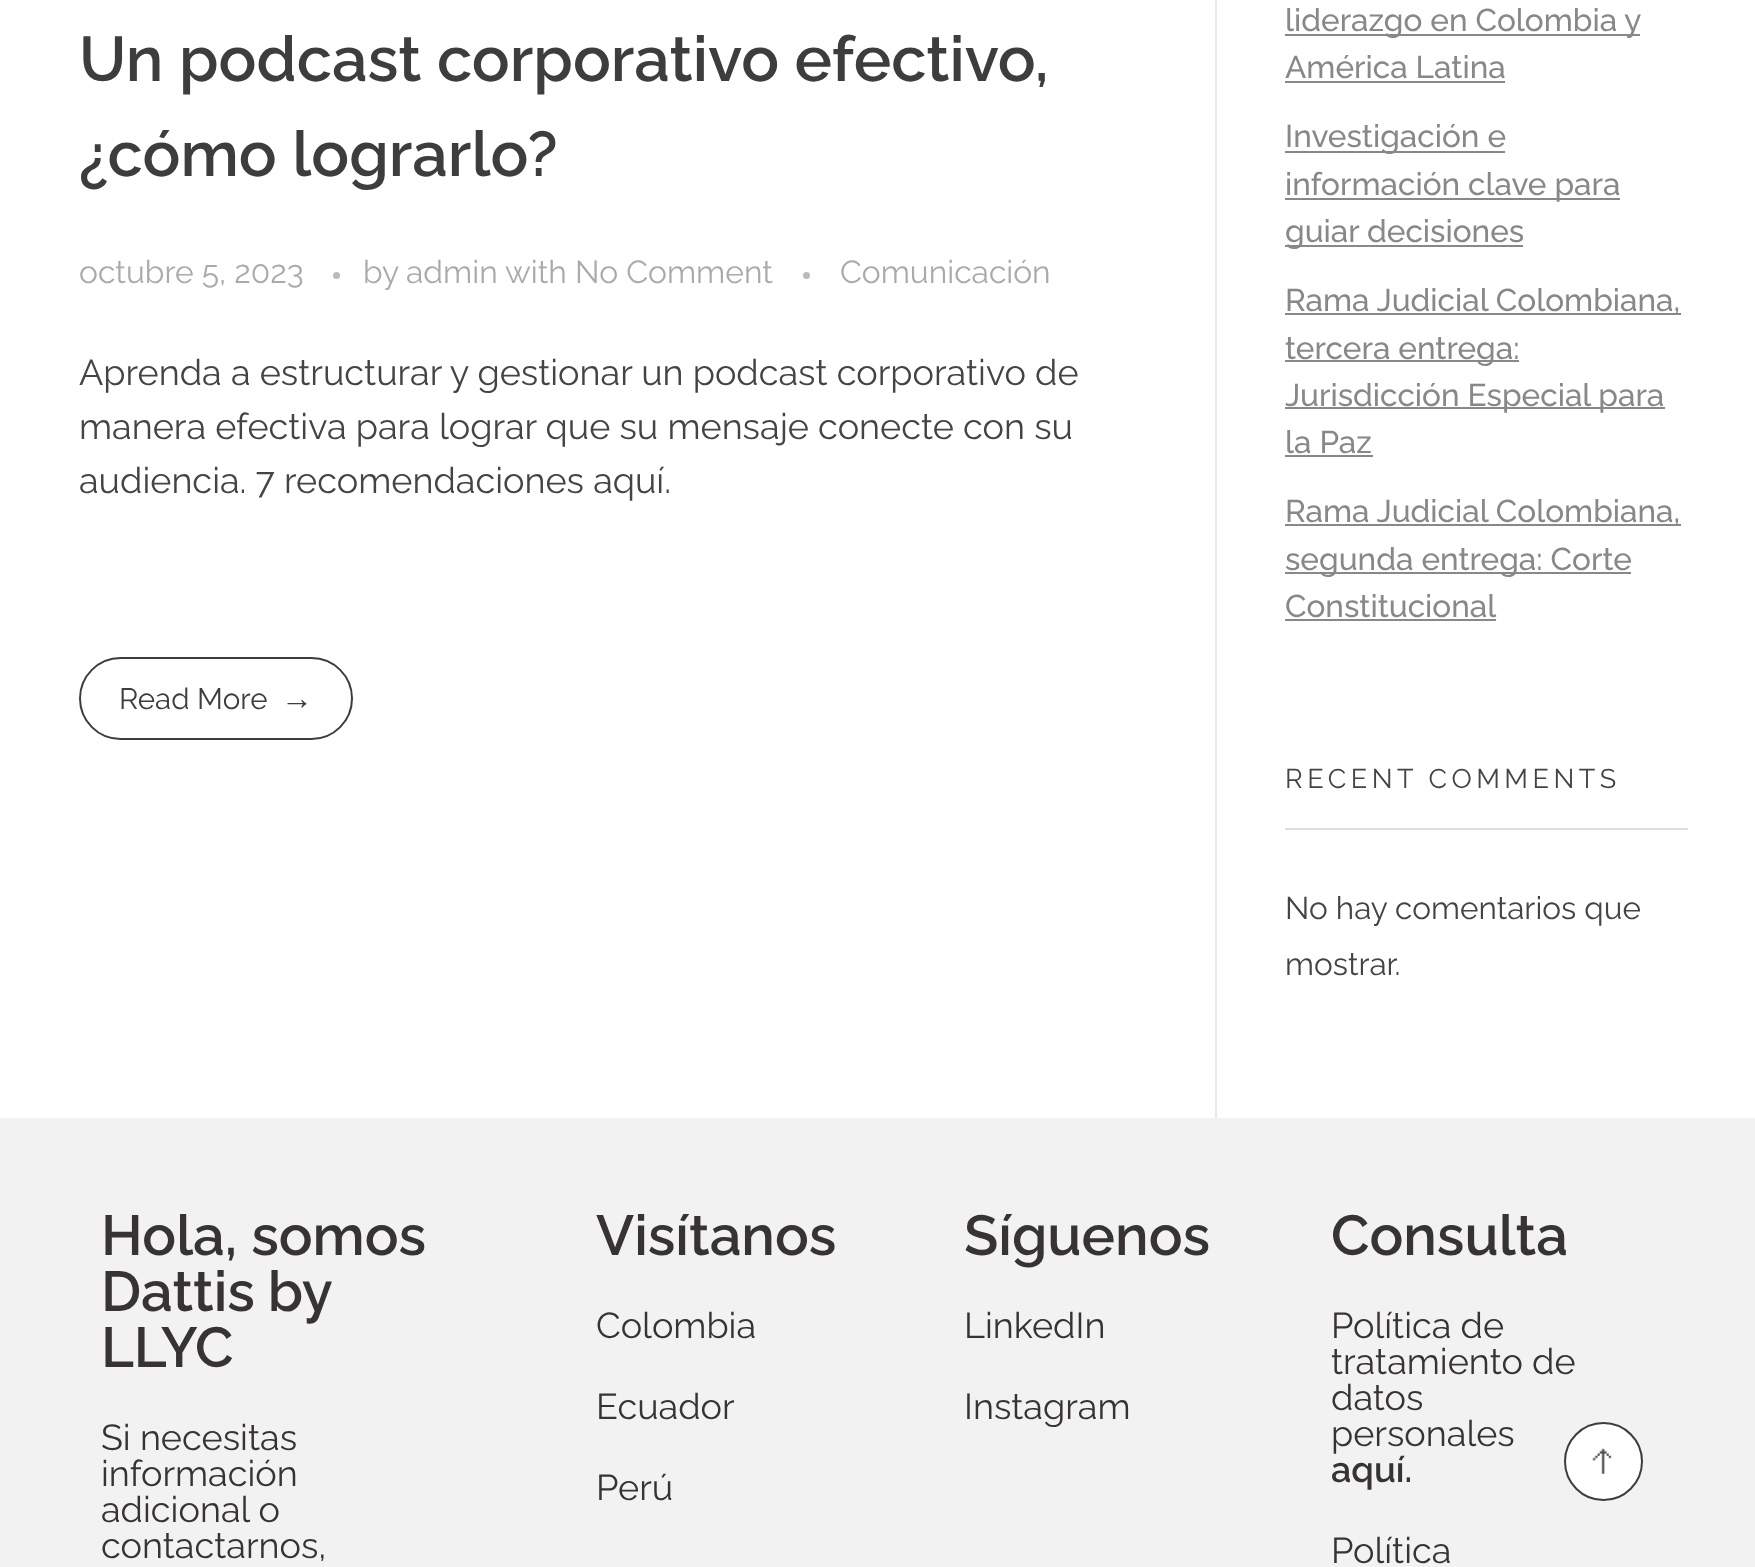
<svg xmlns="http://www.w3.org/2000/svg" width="1755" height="1567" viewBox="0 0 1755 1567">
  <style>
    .t1 { font: 600 63px Raleway; fill: #3d3d3d; }
    .t2 { font: 31.75px Raleway; fill: #aaa; }
    .t3 { font: 36px Raleway; fill: #444; }
    .t4 { font: 29.5px Raleway; fill: #3d3d3d; }
    .t5 { font: 32px Liberation Sans; fill: #3d3d3d; }
    .t6 { font: 500 31.5px Raleway; fill: #888; }
    .t7 { font: 27px Raleway; letter-spacing: 4.5px; fill: #444; }
    .t8 { font: 31.5px Raleway; fill: #444; }
    .t9 { font: 600 56.25px Raleway; fill: #383333; }
    .t10 { font: 36px Raleway; fill: #383333; }
    .t11 { font: 600 36px Raleway; fill: #383333; }
  </style>
  <rect width="100%" height="100%" fill="#fff"/>
  <text x="79" y="81" class="t1">Un podcast corporativo efectivo,</text>
  <text x="79" y="176" class="t1">¿cómo lograrlo?</text>
  <text x="79" y="283" class="t2">octubre 5, 2023</text>
  <circle cx="336.5" cy="275.5" r="3.5" fill="#bbb"/>
  <text x="363" y="283" class="t2">by</text>
  <text x="406" y="283" class="t2">admin</text>
  <text x="505" y="283" class="t2">with No Comment</text>
  <circle cx="806.5" cy="275.5" r="3.5" fill="#bbb"/>
  <text x="840" y="283" class="t2">Comunicación</text>
  <text x="79" y="385" class="t3">Aprenda a estructurar y gestionar un podcast corporativo de</text>
  <text x="79" y="439" class="t3">manera efectiva para lograr que su mensaje conecte con su</text>
  <text x="79" y="493" class="t3">audiencia. 7 recomendaciones aquí.</text>
  <rect x="80" y="658" width="272" height="81" rx="40.5" fill="none" stroke="#3d3d3d" stroke-width="2"/>
  <text x="119" y="709" class="t4">Read More</text>
  <text x="281" y="709" class="t5">→</text>
  <rect x="1215" y="0" width="2" height="1118" fill="#eaeaea"/>
  <rect x="1285" y="34" width="355" height="2" fill="#888"/>
  <text x="1285" y="31" class="t6">liderazgo en Colombia y</text>
  <text x="1285" y="78" class="t6">América Latina</text>
  <rect x="1285" y="81" width="220" height="2" fill="#888"/>
  <rect x="1285" y="151" width="220" height="2" fill="#888"/>
  <text x="1285" y="147" class="t6">Investigación e</text>
  <rect x="1285" y="198" width="335" height="2" fill="#888"/>
  <text x="1285" y="195" class="t6">información clave para</text>
  <rect x="1285" y="245" width="238" height="2" fill="#888"/>
  <text x="1285" y="242" class="t6">guiar decisiones</text>
  <rect x="1285" y="313" width="396" height="2" fill="#888"/>
  <text x="1285" y="311" class="t6">Rama Judicial Colombiana,</text>
  <rect x="1285" y="360" width="234" height="2" fill="#888"/>
  <text x="1285" y="359" class="t6">tercera entrega:</text>
  <rect x="1285" y="407" width="380" height="2" fill="#888"/>
  <text x="1285" y="406" class="t6">Jurisdicción Especial para</text>
  <text x="1285" y="453" class="t6">la Paz</text>
  <rect x="1285" y="455" width="88" height="2" fill="#888"/>
  <rect x="1285" y="524" width="396" height="2" fill="#888"/>
  <text x="1285" y="522" class="t6">Rama Judicial Colombiana,</text>
  <rect x="1285" y="572" width="346" height="2" fill="#888"/>
  <text x="1285" y="570" class="t6">segunda entrega: Corte</text>
  <text x="1285" y="617" class="t6">Constitucional</text>
  <rect x="1285" y="619" width="211" height="2" fill="#888"/>
  <rect x="1285" y="828" width="403" height="2" fill="#dedede"/>
  <text x="1285" y="788" class="t7">RECENT COMMENTS</text>
  <text x="1285" y="919" class="t8">No hay comentarios que</text>
  <text x="1285" y="975" class="t8">mostrar.</text>
  <rect x="0" y="1118" width="1755" height="449" fill="#f2f2f2"/>
  <text x="101" y="1255" class="t9">Hola, somos</text>
  <text x="101" y="1311" word-spacing="-1" class="t9">Dattis by</text>
  <text x="101" y="1367" class="t9">LLYC</text>
  <text x="101" y="1450" class="t10">Si necesitas</text>
  <text x="101" y="1486" class="t10">información</text>
  <text x="101" y="1522" class="t10">adicional o</text>
  <text x="101" y="1558" class="t10">contactarnos,</text>
  <text x="596" y="1255" class="t9">Visítanos</text>
  <text x="596" y="1338" class="t10">Colombia</text>
  <text x="596" y="1419" class="t10">Ecuador</text>
  <text x="596" y="1500" class="t10">Perú</text>
  <text x="964" y="1255" class="t9">Síguenos</text>
  <text x="964" y="1338" class="t10">LinkedIn</text>
  <text x="964" y="1419" class="t10">Instagram</text>
  <text x="1331" y="1255" class="t9">Consulta</text>
  <text x="1331" y="1338" class="t10">Política de</text>
  <text x="1331" y="1374" class="t10">tratamiento de</text>
  <text x="1331" y="1410" class="t10">datos</text>
  <text x="1331" y="1446" class="t10">personales</text>
  <text x="1331" y="1482" class="t11">aquí.</text>
  <text x="1331" y="1563" class="t10">Política</text>
  <circle cx="1603.5" cy="1461.5" r="38.5" fill="#fff" stroke="#3d3d3d" stroke-width="2"/>
  <image x="1592" y="1448" width="20" height="26" href="images/1.png"/>
</svg>
